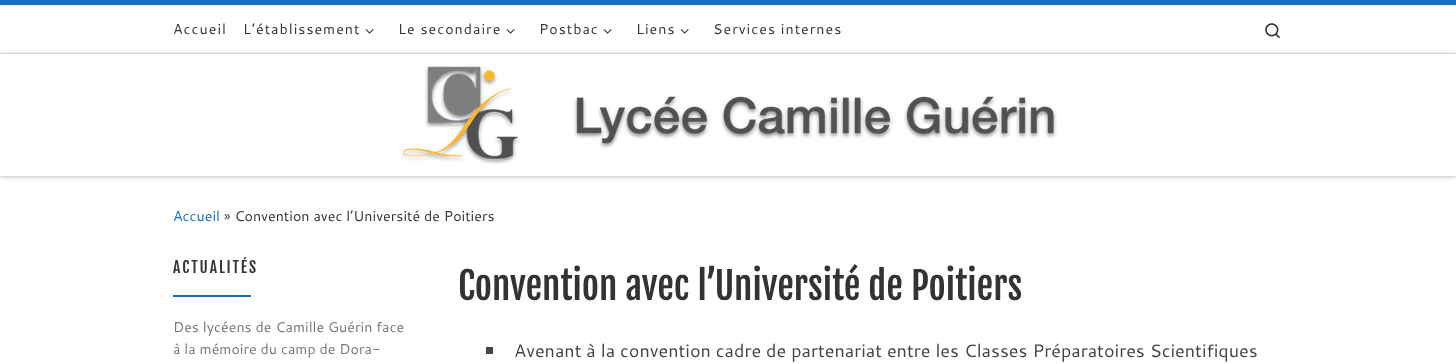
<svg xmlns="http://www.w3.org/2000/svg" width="1456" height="364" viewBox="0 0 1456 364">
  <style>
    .t1 { font: 14.25px Cantarell; letter-spacing: 1px; fill: #333; }
    .t2 { font: 14.25px Cantarell; fill: #1670bf; }
    .t3 { font: 14.25px Cantarell; fill: #333; }
    .t4 { font: 15.5px Fjalla One; letter-spacing: 2px; fill: #333; }
    .t5 { font: 14.25px Cantarell; fill: #777; }
    .t6 { font: 37.3px Fjalla One; fill: #333; }
    .t7 { font: 18px Cantarell; fill: #444; }
  </style>
  <defs>
    <clipPath id="clip1"><rect x="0" y="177" width="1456" height="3"/></clipPath>
    <clipPath id="clip2"><path d="M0 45H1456V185H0ZM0 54H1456V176H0Z" clip-rule="evenodd"/></clipPath>
  </defs>
  <rect width="100%" height="100%" fill="#fff"/>
  <g clip-path="url(#clip1)">
    <rect x="0" y="2" width="1456" height="177" fill="#66666614" filter="blur(1px)"/>
  </g>
  <rect x="0" y="0" width="1456" height="5" fill="#1670bf"/>
  <rect x="0" y="53" width="1456" height="1" fill="#ececec"/>
  <text x="173" y="34" class="t1">Accueil</text>
  <text x="243" y="34" class="t1">L’établissement</text>
  <image x="365" y="29" width="9" height="5" href="images/1.png"/>
  <text x="398" y="34" class="t1">Le secondaire</text>
  <image x="506" y="29" width="9" height="5" href="images/1.png"/>
  <text x="539" y="34" class="t1">Postbac</text>
  <image x="603" y="29" width="9" height="5" href="images/1.png"/>
  <text x="636" y="34" class="t1">Liens</text>
  <image x="680" y="29" width="9" height="5" href="images/1.png"/>
  <text x="713" y="34" class="t1">Services internes</text>
  <image x="1265" y="23" width="15" height="16" href="images/2.png"/>
  <rect x="0" y="176" width="1456" height="1" fill="#efefef"/>
  <g clip-path="url(#clip2)">
    <rect x="0" y="54" width="1456" height="122" fill="#00000033" filter="blur(2.5px)"/>
  </g>
  <image x="401" y="66" width="656" height="98" href="images/3.png"/>
  <text x="173" y="221" class="t2">Accueil</text>
  <text x="224" y="221" class="t3">» Convention avec l’Université de Poitiers</text>
  <text x="173" y="273" class="t4">ACTUALITÉS</text>
  <rect x="173" y="295" width="78" height="2" fill="#1670bf"/>
  <text x="173" y="332" class="t5">Des lycéens de Camille Guérin face</text>
  <text x="173" y="354" class="t5">à la mémoire du camp de Dora-</text>
  <text x="458" y="300" class="t6">Convention avec l’Université de Poitiers</text>
  <rect x="486" y="347" width="7" height="7" fill="#444"/>
  <text x="514" y="357" class="t7">Avenant à la convention cadre de partenariat entre les Classes Préparatoires Scientifiques</text>
</svg>
